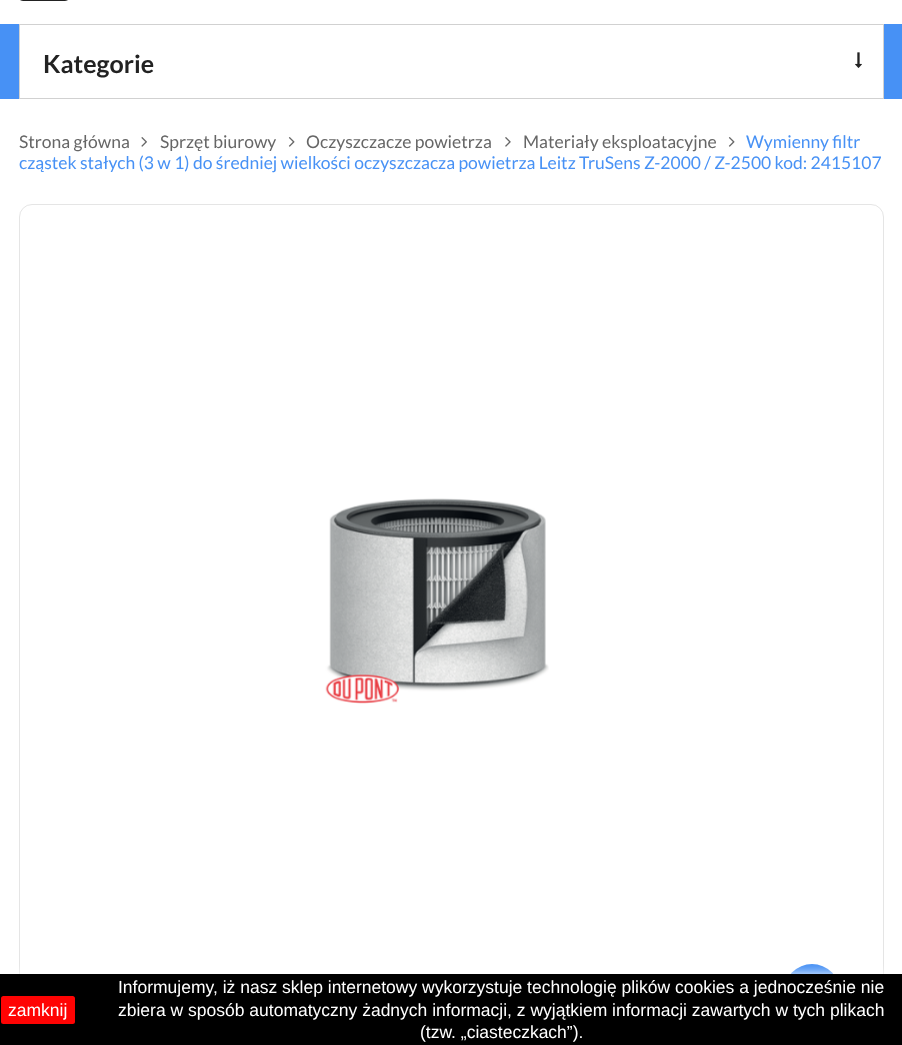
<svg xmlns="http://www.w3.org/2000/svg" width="902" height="1045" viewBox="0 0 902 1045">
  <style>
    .t1 { font: bold 25px Lato; fill: #222; }
    .t2 { font: 17.5px Lato; fill: #666; }
    .t3 { font: 17.5px Lato; fill: #4791f5; }
    .t4 { font: 17.5px Liberation Sans; fill: #fff; }
  </style>
  <rect width="100%" height="100%" fill="#fff"/>
  <rect x="0" y="24" width="902" height="75" fill="#4791f5"/>
  <rect x="19.5" y="-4.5" width="49" height="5" rx="3.5" fill="none" stroke="#222"/>
  <rect x="19.5" y="24.5" width="864" height="74" fill="#fff" stroke="#d1d1d1"/>
  <text x="43" y="73" class="t1">Kategorie</text>
  <image x="855" y="52" width="7" height="16" href="images/1.png"/>
  <text x="19" y="148" class="t2">Strona główna</text>
  <image x="141" y="137" width="6" height="10" href="images/2.png"/>
  <text x="160" y="148" class="t2">Sprzęt biurowy</text>
  <image x="288" y="137" width="7" height="10" href="images/3.png"/>
  <text x="306" y="148" class="t2">Oczyszczacze powietrza</text>
  <image x="505" y="137" width="6" height="10" href="images/4.png"/>
  <text x="523" y="148" class="t2">Materiały eksploatacyjne</text>
  <image x="728" y="137" width="7" height="10" href="images/3.png"/>
  <text x="746" y="148" class="t3">Wymienny filtr</text>
  <text x="19" y="169" class="t3">cząstek stałych (3 w 1) do średniej wielkości oczyszczacza powietrza Leitz TruSens Z-2000 / Z-2500 kod: 2415107</text>
  <rect x="19.5" y="204.5" width="864" height="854" rx="12.5" fill="none" stroke="#e5e5e5"/>
  <image x="325" y="498" width="224" height="206" href="images/5.png"/>
  <circle cx="812" cy="992" r="28" fill="#4791f5"/>
  <rect x="0" y="974" width="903" height="71" fill="#fff" filter="blur(6px)"/>
  <rect x="0" y="974" width="902" height="71" fill="#000"/>
  <rect x="1" y="996" width="74" height="28" rx="2.5" fill="#ff0303"/>
  <text x="8" y="1016" class="t4">zamknij</text>
  <text x="118" y="993" class="t4">Informujemy, iż nasz sklep internetowy wykorzystuje technologię plików cookies a jednocześnie nie</text>
  <text x="118" y="1016" class="t4">zbiera w sposób automatyczny żadnych informacji, z wyjątkiem informacji zawartych w tych plikach</text>
  <text x="420" y="1038" class="t4">(tzw. „ciasteczkach”).</text>
</svg>
